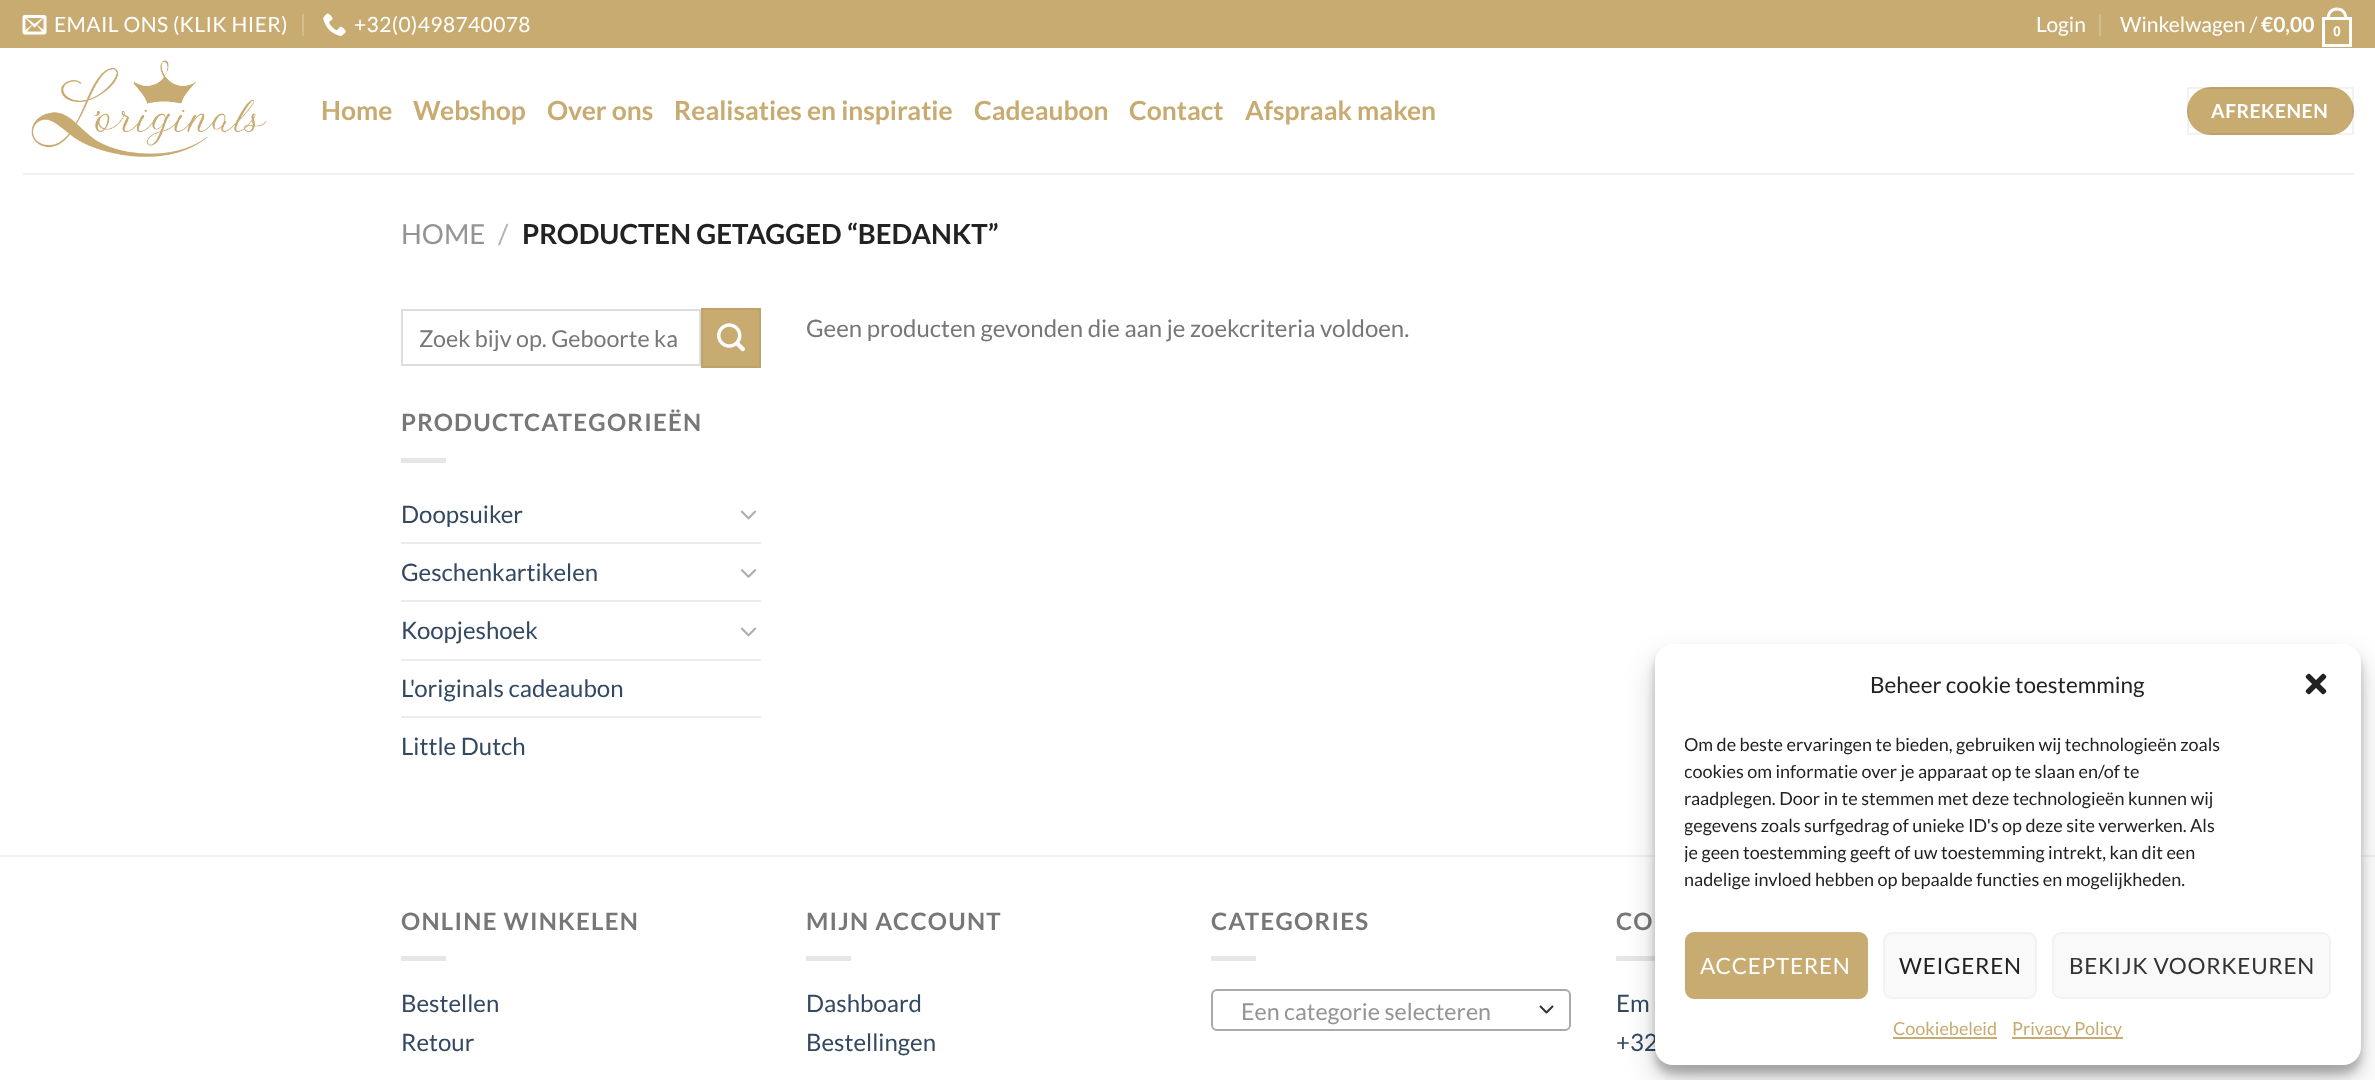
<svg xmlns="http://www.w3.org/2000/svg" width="2375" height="1080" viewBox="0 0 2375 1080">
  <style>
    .t1 { font: 21px Lato; letter-spacing: 0.4px; fill: #fff; }
    .t2 { font: 21px Lato; fill: #fff; }
    .t3 { font: bold 21px Lato; fill: #fff; }
    .t4 { font: bold 14px Liberation Sans; fill: #fff; }
    .t5 { font: bold 26.4px Lato; fill: #c8ab71; }
    .t6 { font: bold 19.25px Lato; letter-spacing: 0.5px; fill: #fff; }
    .t7 { font: 27.6px Lato; fill: #949494; }
    .t8 { font: 27.6px Lato; fill: #b2b2b2; }
    .t9 { font: bold 27.6px Lato; fill: #222; }
    .t10 { font: 23.25px Lato; fill: #777; }
    .t11 { font: bold 24px Lato; letter-spacing: 1.25px; fill: #777; }
    .t12 { font: 24px Lato; fill: #334862; }
    .t13 { font: 24px Lato; fill: #777; }
    .t14 { font: 23.25px Lato; fill: #949494; }
    .t15 { font: 22.5px Lato; fill: #222; }
    .t16 { font: 18px Lato; fill: #222; }
    .t17 { font: 22.5px Lato; letter-spacing: 0.7px; fill: #fff; }
    .t18 { font: 22.5px Lato; letter-spacing: 0.7px; fill: #222; }
    .t19 { font: 22.5px Lato; letter-spacing: 0.7px; fill: #333; }
    .t20 { font: 18px Lato; fill: #c8ab71; }
  </style>
  <defs>
    <clipPath id="clip1"><rect x="420" y="324" width="257" height="27"/></clipPath>
    <clipPath id="clip2"><rect x="1685" y="732" width="646" height="170"/></clipPath>
  </defs>
  <rect width="100%" height="100%" fill="#fff"/>
  <rect x="0" y="0" width="2375" height="48" fill="#c8ab71"/>
  <image x="22" y="15" width="25" height="20" href="images/1.png"/>
  <text x="54" y="32" class="t1">EMAIL ONS (KLIK HIER)</text>
  <rect x="302" y="14" width="2" height="22" fill="#d3bc8d"/>
  <image x="323" y="13" width="23" height="23" href="images/2.png"/>
  <text x="354" y="32" class="t1">+32(0)498740078</text>
  <text x="2036" y="32" class="t2">Login</text>
  <rect x="2099" y="14" width="2" height="22" fill="#d3bc8d"/>
  <text x="2120" y="32" class="t2">Winkelwagen /</text>
  <text x="2261" y="32" class="t3">€0,00</text>
  <rect x="2323.5" y="18.5" width="27" height="27" fill="none" stroke="#fff" stroke-width="3"/>
  <path d="M2337 7.5C2344 7.5 2347.5 13 2347.5 19.5H2326.5C2326.5 13 2330 7.5 2337 7.5ZM2337 10.5C2342.5 10.5 2344.5 15 2344.5 19.5H2329.5C2329.5 15 2331.5 10.5 2337 10.5Z" fill="#fff" fill-rule="evenodd"/>
  <text x="2333" y="36" class="t4">0</text>
  <image x="31" y="60" width="236" height="97" href="images/3.png"/>
  <text x="321" y="120" class="t5">Home</text>
  <text x="413" y="120" class="t5">Webshop</text>
  <text x="547" y="120" class="t5">Over ons</text>
  <text x="674" y="120" class="t5">Realisaties en inspiratie</text>
  <text x="974" y="120" class="t5">Cadeaubon</text>
  <text x="1129" y="120" class="t5">Contact</text>
  <text x="1245" y="120" class="t5">Afspraak maken</text>
  <rect x="2187" y="87" width="167" height="48" rx="24" fill="#c8ab71"/>
  <rect x="2188" y="88" width="165" height="46" fill="none" stroke="#0000000d" stroke-width="2"/>
  <text x="2211" y="118" class="t6">AFREKENEN</text>
  <rect x="23" y="173" width="2331" height="2" fill="#f1f1f1"/>
  <text x="401" y="244" class="t7">HOME</text>
  <text x="498" y="244" class="t8">/</text>
  <text x="522" y="244" class="t9">PRODUCTEN GETAGGED “BEDANKT”</text>
  <rect x="402" y="310" width="298" height="55" fill="none" stroke="#ddd" stroke-width="2"/>
  <g clip-path="url(#clip1)">
    <text x="419" y="347" class="t10">Zoek bijv op. Geboorte ka</text>
  </g>
  <rect x="702" y="309" width="58" height="58" fill="#c8ab71" stroke="#bea26b" stroke-width="2"/>
  <image x="717" y="323" width="28" height="29" href="images/4.png"/>
  <text x="401" y="431" class="t11">PRODUCTCATEGORIEËN</text>
  <rect x="401" y="458" width="45" height="5" fill="#e6e6e6"/>
  <text x="401" y="523" class="t12">Doopsuiker</text>
  <image x="740" y="510" width="17" height="10" href="images/5.png"/>
  <rect x="401" y="542" width="360" height="2" fill="#ececec"/>
  <text x="401" y="581" class="t12">Geschenkartikelen</text>
  <image x="740" y="569" width="17" height="9" href="images/6.png"/>
  <rect x="401" y="600" width="360" height="2" fill="#ececec"/>
  <text x="401" y="639" class="t12">Koopjeshoek</text>
  <image x="740" y="627" width="17" height="10" href="images/5.png"/>
  <rect x="401" y="659" width="360" height="2" fill="#ececec"/>
  <text x="401" y="697" class="t12">L'originals cadeaubon</text>
  <rect x="401" y="716" width="360" height="2" fill="#ececec"/>
  <text x="401" y="755" class="t12">Little Dutch</text>
  <text x="806" y="337" class="t13">Geen producten gevonden die aan je zoekcriteria voldoen.</text>
  <rect x="0" y="855" width="2375" height="2" fill="#f2f2f2"/>
  <text x="401" y="930" class="t11">ONLINE WINKELEN</text>
  <rect x="401" y="956" width="45" height="5" fill="#e6e6e6"/>
  <text x="401" y="1012" class="t12">Bestellen</text>
  <text x="401" y="1051" class="t12">Retour</text>
  <text x="806" y="930" class="t11">MIJN ACCOUNT</text>
  <rect x="806" y="956" width="45" height="5" fill="#e6e6e6"/>
  <text x="806" y="1012" class="t12">Dashboard</text>
  <text x="806" y="1051" class="t12">Bestellingen</text>
  <text x="1211" y="930" class="t11">CATEGORIES</text>
  <rect x="1211" y="956" width="45" height="5" fill="#e6e6e6"/>
  <path d="M1540.5 1006.5L1546.5 1012.5L1552.5 1006.5" fill="none" stroke="#333" stroke-width="2" stroke-linecap="round" stroke-linejoin="round"/>
  <rect x="1212" y="990" width="358" height="40" rx="5" fill="none" stroke="#aaa" stroke-width="2"/>
  <text x="1241" y="1020" class="t14">Een categorie selecteren</text>
  <text x="1616" y="930" class="t11">CO</text>
  <rect x="1616" y="956" width="45" height="5" fill="#e6e6e6"/>
  <text x="1616" y="1012" class="t12">Em</text>
  <text x="1616" y="1051" class="t12">+32</text>
  <rect x="1655" y="653" width="706" height="421" rx="18" fill="#0000003b" filter="blur(4.5px)"/>
  <rect x="1655" y="659" width="706" height="421" rx="18" fill="#00000030" filter="blur(15px)"/>
  <rect x="1655" y="644" width="706" height="421" rx="18" fill="#fff"/>
  <text x="1870" y="693" class="t15">Beheer cookie toestemming</text>
  <image x="2305" y="673" width="22" height="22" href="images/7.png"/>
  <g clip-path="url(#clip2)">
    <text x="1684" y="751" class="t16">Om de beste ervaringen te bieden, gebruiken wij technologieën zoals</text>
    <text x="1684" y="778" class="t16">cookies om informatie over je apparaat op te slaan en/of te</text>
  </g>
  <text x="1684" y="805" class="t16">raadplegen. Door in te stemmen met deze technologieën kunnen wij</text>
  <g clip-path="url(#clip2)">
    <text x="1684" y="832" class="t16">gegevens zoals surfgedrag of unieke ID's op deze site verwerken. Als</text>
    <text x="1684" y="859" class="t16">je geen toestemming geeft of uw toestemming intrekt, kan dit een</text>
  </g>
  <text x="1684" y="886" class="t16">nadelige invloed hebben op bepaalde functies en mogelijkheden.</text>
  <rect x="1686" y="933" width="181" height="65" rx="8" fill="#c8ab71" stroke="#c8ab71" stroke-width="2"/>
  <text x="1700" y="974" class="t17">ACCEPTEREN</text>
  <rect x="1884" y="933" width="152" height="65" rx="8" fill="#f9f9f9" stroke="#f2f2f2" stroke-width="2"/>
  <text x="1899" y="974" class="t18">WEIGEREN</text>
  <rect x="2053" y="933" width="277" height="65" rx="8" fill="#f9f9f9" stroke="#f2f2f2" stroke-width="2"/>
  <text x="2069" y="974" class="t19">BEKIJK VOORKEUREN</text>
  <text x="1893" y="1035" class="t20">Cookiebeleid</text>
  <rect x="1893" y="1037" width="104" height="2" fill="#c8ab71"/>
  <rect x="2012" y="1037" width="111" height="2" fill="#c8ab71"/>
  <text x="2012" y="1035" class="t20">Privacy Policy</text>
</svg>
